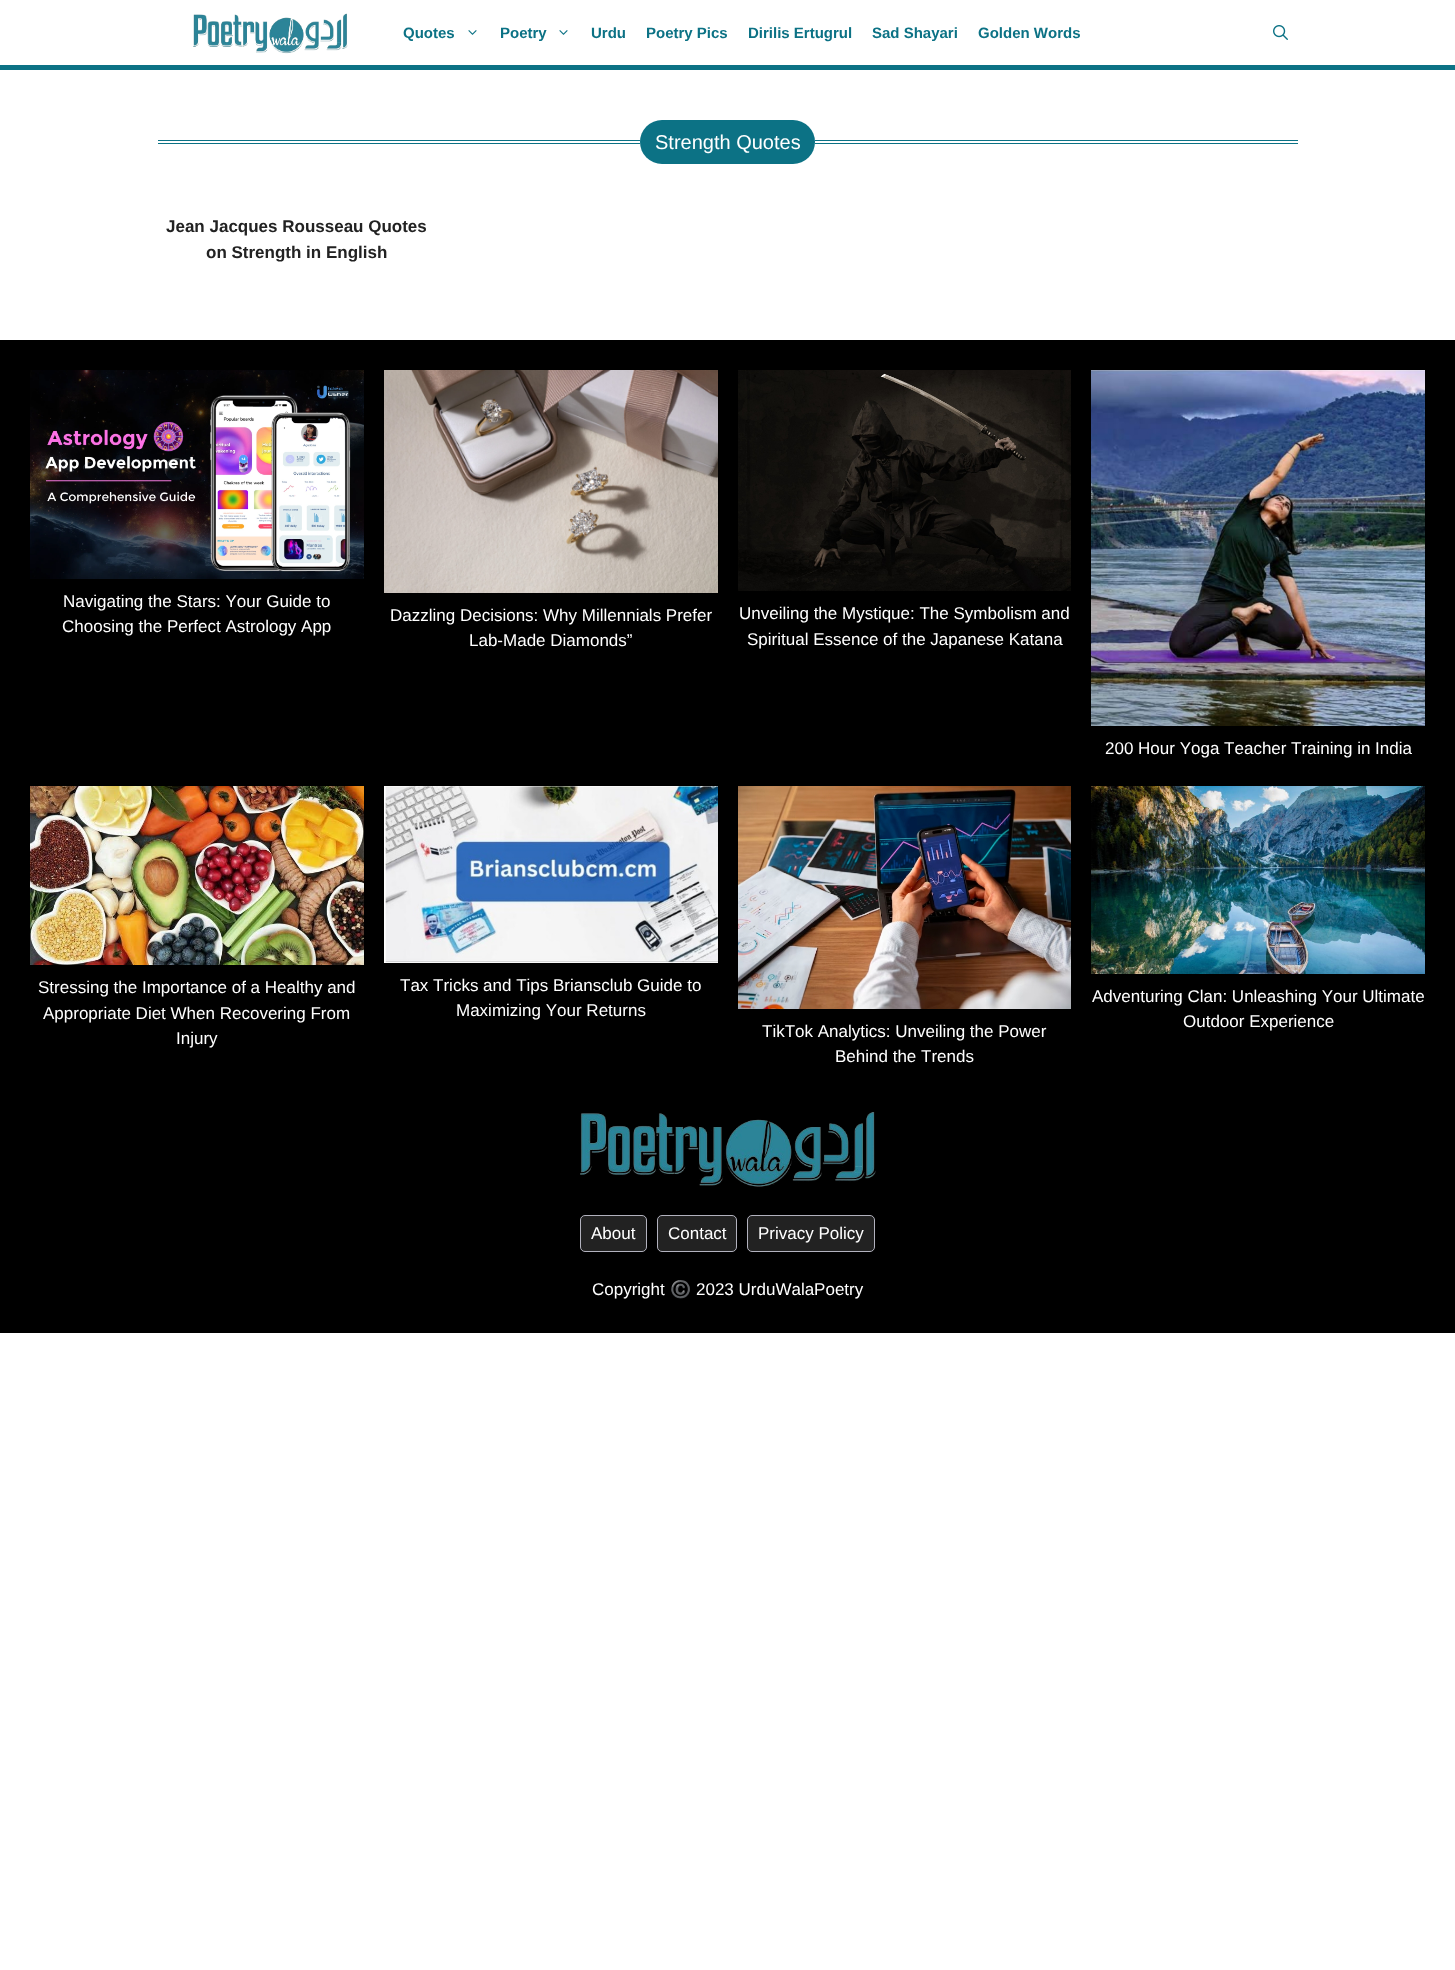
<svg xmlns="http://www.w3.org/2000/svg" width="1455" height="1970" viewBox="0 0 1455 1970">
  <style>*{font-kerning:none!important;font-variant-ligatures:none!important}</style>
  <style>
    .t1 { font: bold 15px Liberation Sans; fill: #0c7285; }
    .t2 { font: 20px Liberation Sans; fill: #fff; }
    .t3 { font: bold 17px Liberation Sans; fill: #222; }
    .t4 { font: 17px Liberation Sans; fill: #fff; }
    .t5 { font: 17px Noto Color Emoji; fill: #fff; }
  </style>
  <rect width="100%" height="100%" fill="#fff"/>
  <rect x="0" y="65" width="1455" height="5" fill="#0c7285"/>
  <image x="193" y="13" width="155" height="41" href="images/1.png"/>
  <text x="403" y="38" class="t1">Quotes</text>
  <image x="468" y="30" width="9" height="5" href="images/2.png"/>
  <text x="500" y="38" class="t1">Poetry</text>
  <image x="559" y="30" width="9" height="5" href="images/2.png"/>
  <text x="591" y="38" class="t1">Urdu</text>
  <text x="646" y="38" class="t1">Poetry Pics</text>
  <text x="748" y="38" class="t1">Dirilis Ertugrul</text>
  <text x="872" y="38" class="t1">Sad Shayari</text>
  <text x="978" y="38" class="t1">Golden Words</text>
  <image x="1273" y="25" width="15" height="15" href="images/3.png"/>
  <rect x="158" y="140" width="482" height="1" fill="#0c7285"/>
  <rect x="158" y="143" width="482" height="1" fill="#0c7285"/>
  <rect x="640" y="120" width="175" height="44" rx="22" fill="#0c7285"/>
  <text x="655" y="149" class="t2">Strength Quotes</text>
  <rect x="815" y="140" width="483" height="1" fill="#0c7285"/>
  <rect x="815" y="143" width="483" height="1" fill="#0c7285"/>
  <text x="166" y="232" class="t3">Jean Jacques Rousseau Quotes</text>
  <text x="206" y="258" class="t3">on Strength in English</text>
  <rect x="0" y="340" width="1455" height="993" fill="#000"/>
  <image x="30" y="370" width="334" height="209" href="images/4.png"/>
  <text x="63" y="607" class="t4">Navigating the Stars: Your Guide to</text>
  <text x="62" y="632" class="t4">Choosing the Perfect Astrology App</text>
  <image x="384" y="370" width="334" height="223" href="images/5.png"/>
  <text x="390" y="621" class="t4">Dazzling Decisions: Why Millennials Prefer</text>
  <text x="469" y="646" class="t4">Lab-Made Diamonds”</text>
  <image x="738" y="370" width="333" height="221" href="images/6.png"/>
  <text x="739" y="619" class="t4">Unveiling the Mystique: The Symbolism and</text>
  <text x="747" y="645" class="t4">Spiritual Essence of the Japanese Katana</text>
  <image x="1091" y="370" width="334" height="356" href="images/7.png"/>
  <text x="1105" y="754" class="t4">200 Hour Yoga Teacher</text>
  <text x="1291" y="754" class="t4">Training in India</text>
  <image x="30" y="786" width="334" height="179" href="images/8.png"/>
  <text x="38" y="993" class="t4">Stressing the Importance of a Healthy and</text>
  <text x="43" y="1019" class="t4">Appropriate Diet When Recovering From</text>
  <text x="176" y="1044" class="t4">Injury</text>
  <image x="384" y="786" width="334" height="177" href="images/9.png"/>
  <text x="400" y="991" class="t4">Tax Tricks and Tips</text>
  <text x="553" y="991" class="t4">Briansclub Guide to</text>
  <text x="456" y="1016" class="t4">Maximizing Your Returns</text>
  <image x="1091" y="786" width="334" height="188" href="images/10.png"/>
  <text x="1092" y="1002" class="t4">Adventuring Clan: Unleashing Your Ultimate</text>
  <text x="1183" y="1027" class="t4">Outdoor Experience</text>
  <image x="738" y="786" width="333" height="223" href="images/11.png"/>
  <text x="762" y="1037" class="t4">TikTok Analytics: Unveiling the Power</text>
  <text x="835" y="1062" class="t4">Behind the Trends</text>
  <image x="580" y="1112" width="296" height="75" href="images/12.png"/>
  <rect x="580.5" y="1215.5" width="66" height="36" rx="4.5" fill="#222" stroke="#b2b2be"/>
  <text x="591" y="1239" class="t4">About</text>
  <rect x="657.5" y="1215.5" width="79" height="36" rx="4.5" fill="#222" stroke="#b2b2be"/>
  <text x="668" y="1239" class="t4">Contact</text>
  <rect x="747.5" y="1215.5" width="127" height="36" rx="4.5" fill="#222" stroke="#b2b2be"/>
  <text x="758" y="1239" class="t4">Privacy Policy</text>
  <text x="592" y="1295" class="t4">Copyright</text>
  <text x="670" y="1295" class="t5">©️</text>
  <text x="696" y="1295" class="t4">2023 UrduWalaPoetry</text>
</svg>
